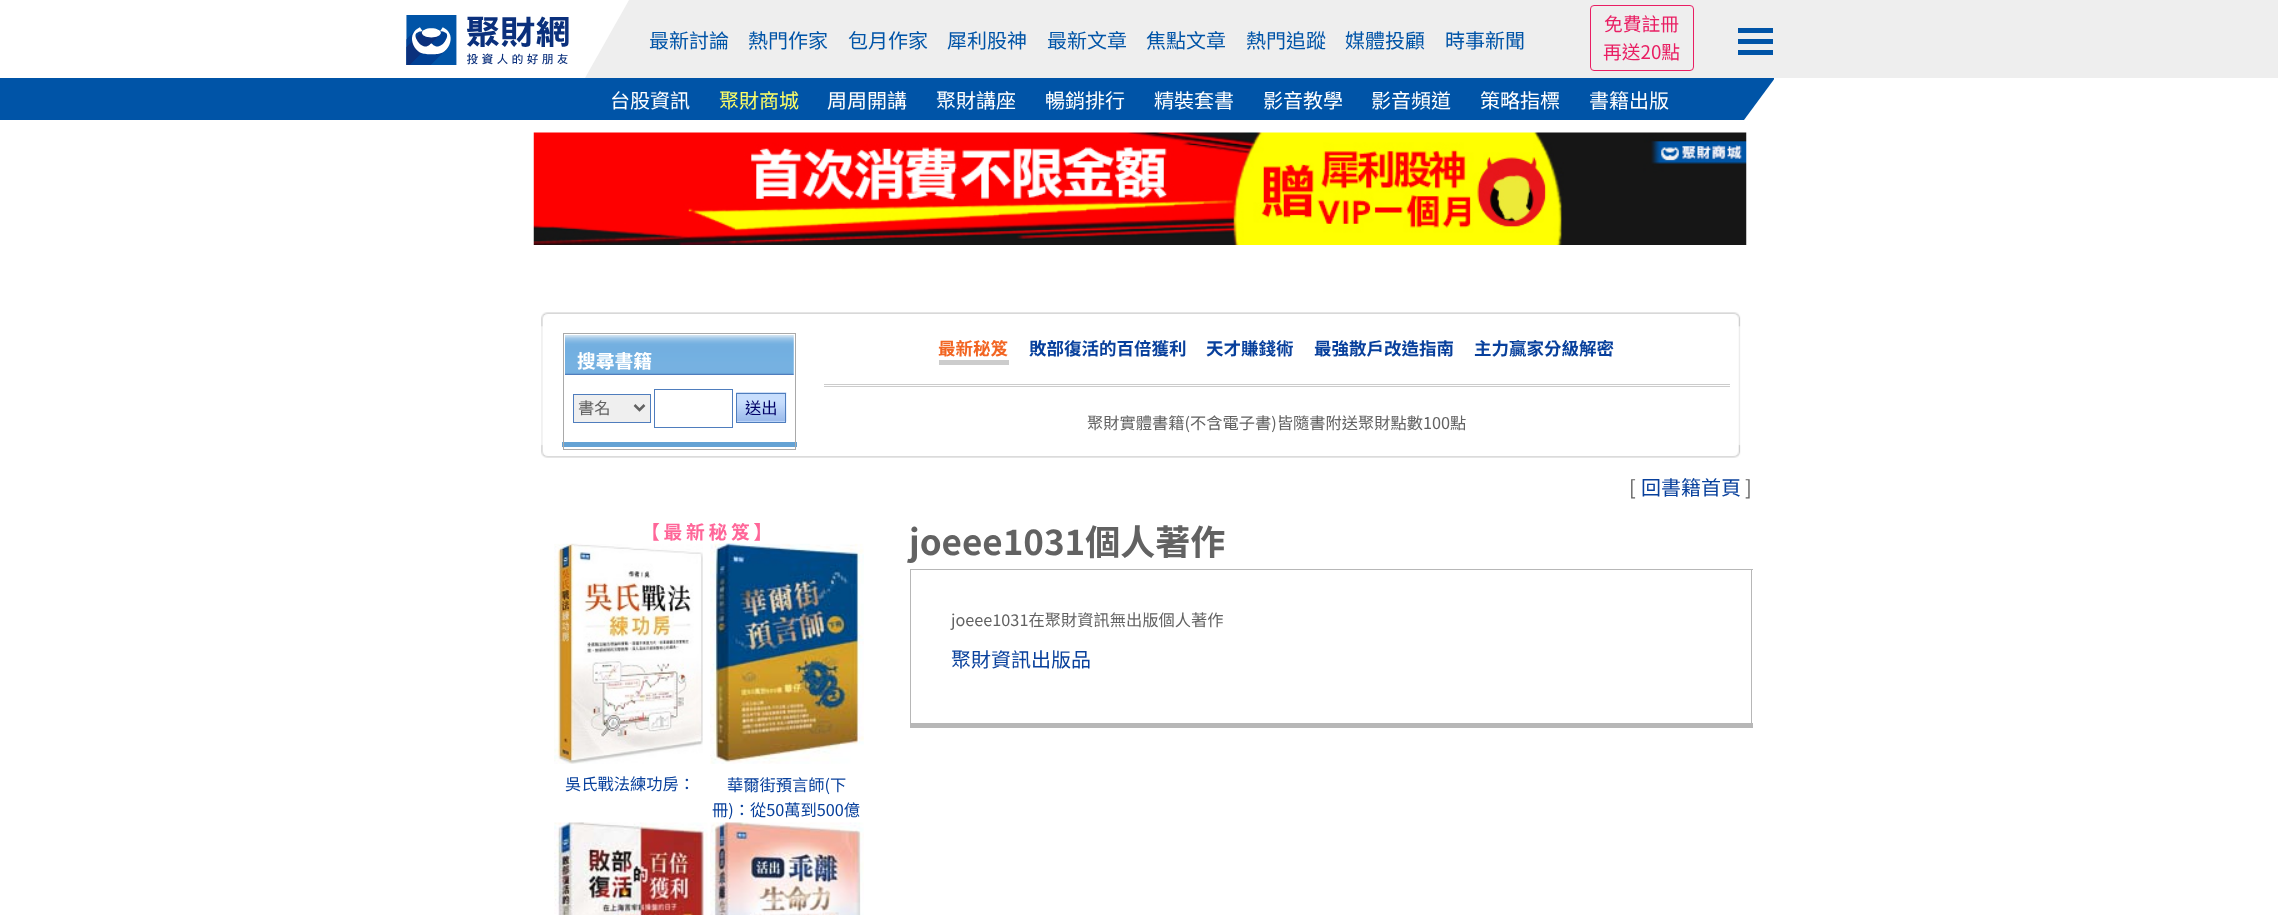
<svg xmlns="http://www.w3.org/2000/svg" width="2278" height="915" viewBox="0 0 2278 915">
  <style>*{font-kerning:none!important;font-variant-ligatures:none!important}</style>
  <style>
    .t1 { font: 20px Noto Sans TC; fill: #0054a7; }
    .t2 { font: 18.75px Noto Sans TC; fill: #e91e63; }
    .t3 { font: 20px Noto Sans TC; fill: #fff; }
    .t4 { font: 20px Noto Sans TC; fill: #ff6; }
    .t5 { font: bold 18.75px Noto Sans TC; fill: #fff; }
    .t6 { font: 16.25px Noto Sans TC; fill: #626262; }
    .t7 { font: 16.25px Noto Sans TC; fill: #006; }
    .t8 { font: bold 17.5px Noto Sans TC; fill: #f26522; }
    .t9 { font: bold 17.5px Noto Sans TC; fill: #08409c; }
    .t10 { font: 20px Noto Sans TC; fill: #626262; }
    .t11 { font: 20px Noto Sans TC; fill: #08409c; }
    .t12 { font: bold 18.75px Noto Sans TC; letter-spacing: 3.75px; fill: #f69; }
    .t13 { font: 16.25px Noto Sans TC; fill: #08409c; }
    .t14 { font: bold 35px Noto Sans TC; fill: #626262; }
  </style>
  <rect width="100%" height="100%" fill="#fff"/>
  <rect x="585" y="0" width="1693" height="78" fill="#eee"/>
  <image x="406" y="15" width="163" height="50" href="images/1.png"/>
  <path d="M585 78V0H629Z" fill="#fff"/>
  <text x="649" y="48" class="t1">最新討論</text>
  <text x="748" y="48" class="t1">熱門作家</text>
  <text x="848" y="48" class="t1">包月作家</text>
  <text x="947" y="48" class="t1">犀利股神</text>
  <text x="1047" y="48" class="t1">最新文章</text>
  <text x="1146" y="48" class="t1">焦點文章</text>
  <text x="1246" y="48" class="t1">熱門追蹤</text>
  <text x="1345" y="48" class="t1">媒體投顧</text>
  <text x="1445" y="48" class="t1">時事新聞</text>
  <rect x="1590.5" y="5.5" width="103" height="65" rx="3.5" fill="none" stroke="#e91e63"/>
  <text x="1604" y="31" class="t2">免費註冊</text>
  <text x="1603" y="59" class="t2">再送20點</text>
  <rect x="1738" y="28" width="35" height="5" fill="#0054a7"/>
  <rect x="1738" y="39" width="35" height="5" fill="#0054a7"/>
  <rect x="1738" y="50" width="35" height="5" fill="#0054a7"/>
  <rect x="0" y="78" width="1774" height="42" fill="#0054a7"/>
  <text x="610" y="108" class="t3">台股資訊</text>
  <text x="719" y="108" class="t4">聚財商城</text>
  <text x="827" y="108" class="t3">周周開講</text>
  <text x="936" y="108" class="t3">聚財講座</text>
  <text x="1045" y="108" class="t3">暢銷排行</text>
  <text x="1154" y="108" class="t3">精裝套書</text>
  <text x="1263" y="108" class="t3">影音教學</text>
  <text x="1371" y="108" class="t3">影音頻道</text>
  <text x="1480" y="108" class="t3">策略指標</text>
  <text x="1589" y="108" class="t3">書籍出版</text>
  <path d="M1775 78V120H1744Z" fill="#fff"/>
  <image x="533" y="132" width="1214" height="113" href="images/2.png"/>
  <image x="541" y="312" width="1200" height="146" href="images/3.png"/>
  <rect x="562" y="442" width="235" height="5" fill="#64a2d4"/>
  <rect x="563.5" y="333.5" width="232" height="116" fill="none" stroke="#a9a9a9"/>
  <image x="565" y="335" width="229" height="40" href="images/4.png"/>
  <text x="577" y="368" class="t5">搜尋書籍</text>
  <rect x="573.5" y="394.5" width="77" height="28" fill="#efefef" stroke="#4f7dbd"/>
  <path d="M634.5 405L639.5 410L644.5 405" fill="none" stroke="#626262" stroke-width="2.5"/>
  <text x="578" y="414" class="t6">書名</text>
  <rect x="654.5" y="389.5" width="78" height="38" fill="none" stroke="#4f7dbd"/>
  <image x="736" y="392" width="51" height="31" href="images/5.png"/>
  <rect x="736.5" y="393.5" width="49" height="29" fill="none" stroke="#4f7dbd"/>
  <text x="745" y="414" class="t7">送出</text>
  <text x="938" y="355" class="t8">最新秘笈</text>
  <rect x="939" y="360" width="70" height="5" fill="#ccc"/>
  <text x="1029" y="355" class="t9">敗部復活的百倍獲利</text>
  <text x="1206" y="355" class="t9">天才賺錢術</text>
  <text x="1314" y="355" class="t9">最強散戶改造指南</text>
  <text x="1474" y="355" class="t9">主力贏家分級解密</text>
  <rect x="824" y="384" width="906" height="1" fill="#ccc"/>
  <rect x="824" y="386" width="906" height="1" fill="#ccc"/>
  <text x="1087" y="429" class="t6">聚財實體書籍(不含電子書)皆隨書附送聚財點數100點</text>
  <text x="1629" y="495" class="t10">[</text>
  <text x="1641" y="495" class="t11">回書籍首頁</text>
  <text x="1745" y="495" class="t10">]</text>
  <text x="641" y="539" class="t12">【最新秘笈】</text>
  <image x="554" y="543" width="149" height="221" href="images/6.png"/>
  <text x="565" y="790" class="t13">吳氏戰法練功房：</text>
  <image x="710" y="543" width="154" height="221" href="images/7.png"/>
  <text x="727" y="791" class="t13">華爾街預言師(下</text>
  <text x="712" y="816" class="t13">冊)：從50萬到500億</text>
  <image x="554" y="822" width="154" height="93" href="images/8.png"/>
  <image x="710" y="822" width="154" height="93" href="images/9.png"/>
  <text x="909" y="555" class="t14">joeee1031個人著作</text>
  <rect x="910" y="569" width="843" height="1" fill="#b7b7b7"/>
  <rect x="1751" y="569" width="1" height="159" fill="#b7b7b7"/>
  <rect x="910" y="723" width="843" height="5" fill="#b7b7b7"/>
  <rect x="910" y="569" width="1" height="159" fill="#b7b7b7"/>
  <text x="951" y="626" class="t6">joeee1031在聚財資訊無出版個人著作</text>
  <text x="951" y="667" class="t11">聚財資訊出版品</text>
</svg>
